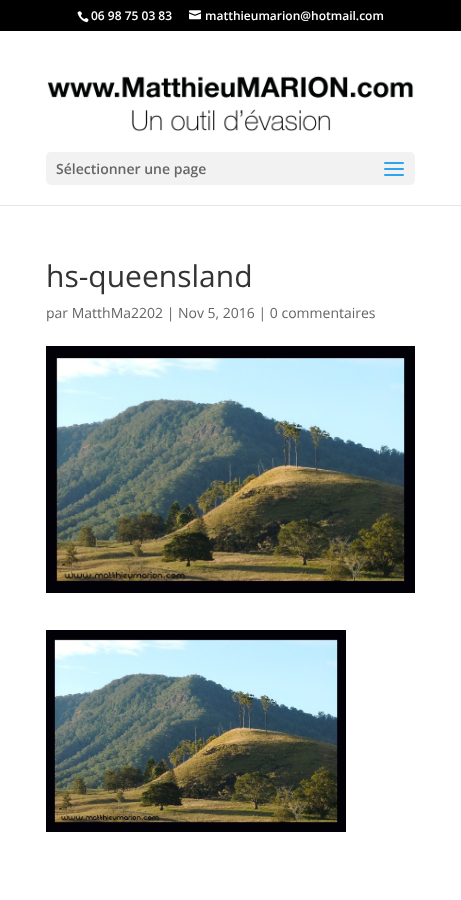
<svg xmlns="http://www.w3.org/2000/svg" width="461" height="900" viewBox="0 0 461 900">
  <style>
    .t1 { font: 600 12px Open Sans; fill: #fff; }
    .t2 { font: 600 14px Open Sans; fill: #666; }
    .t3 { font: 30px Open Sans; fill: #333; }
    .t4 { font: 14px Open Sans; fill: #666; }
  </style>
  <rect width="100%" height="100%" fill="#000"/>
  <image x="77" y="11" width="12" height="12" href="images/1.png"/>
  <text x="91" y="20" class="t1">06 98 75 03 83</text>
  <image x="189" y="10" width="12" height="10" href="images/2.png"/>
  <text x="205" y="20" class="t1">matthieumarion@hotmail.com</text>
  <rect x="0" y="205" width="461" height="1" fill="#e6e6e6"/>
  <rect x="0" y="31" width="461" height="174" fill="#fff"/>
  <image x="47" y="76" width="367" height="56" href="images/3.png"/>
  <rect x="46" y="152" width="369" height="33" rx="5" fill="#f2f2f2"/>
  <text x="56" y="174" class="t2">Sélectionner une page</text>
  <image x="384" y="162" width="20" height="14" href="images/4.png"/>
  <rect x="0" y="206" width="461" height="694" fill="#fff"/>
  <text x="46" y="287" class="t3">hs-queensland</text>
  <text x="46" y="318" class="t4">par MatthMa2202 | Nov 5, 2016 | 0 commentaires</text>
  <image x="46" y="346" width="369" height="247" href="images/5.png"/>
  <image x="46" y="630" width="300" height="202" href="images/6.png"/>
</svg>
